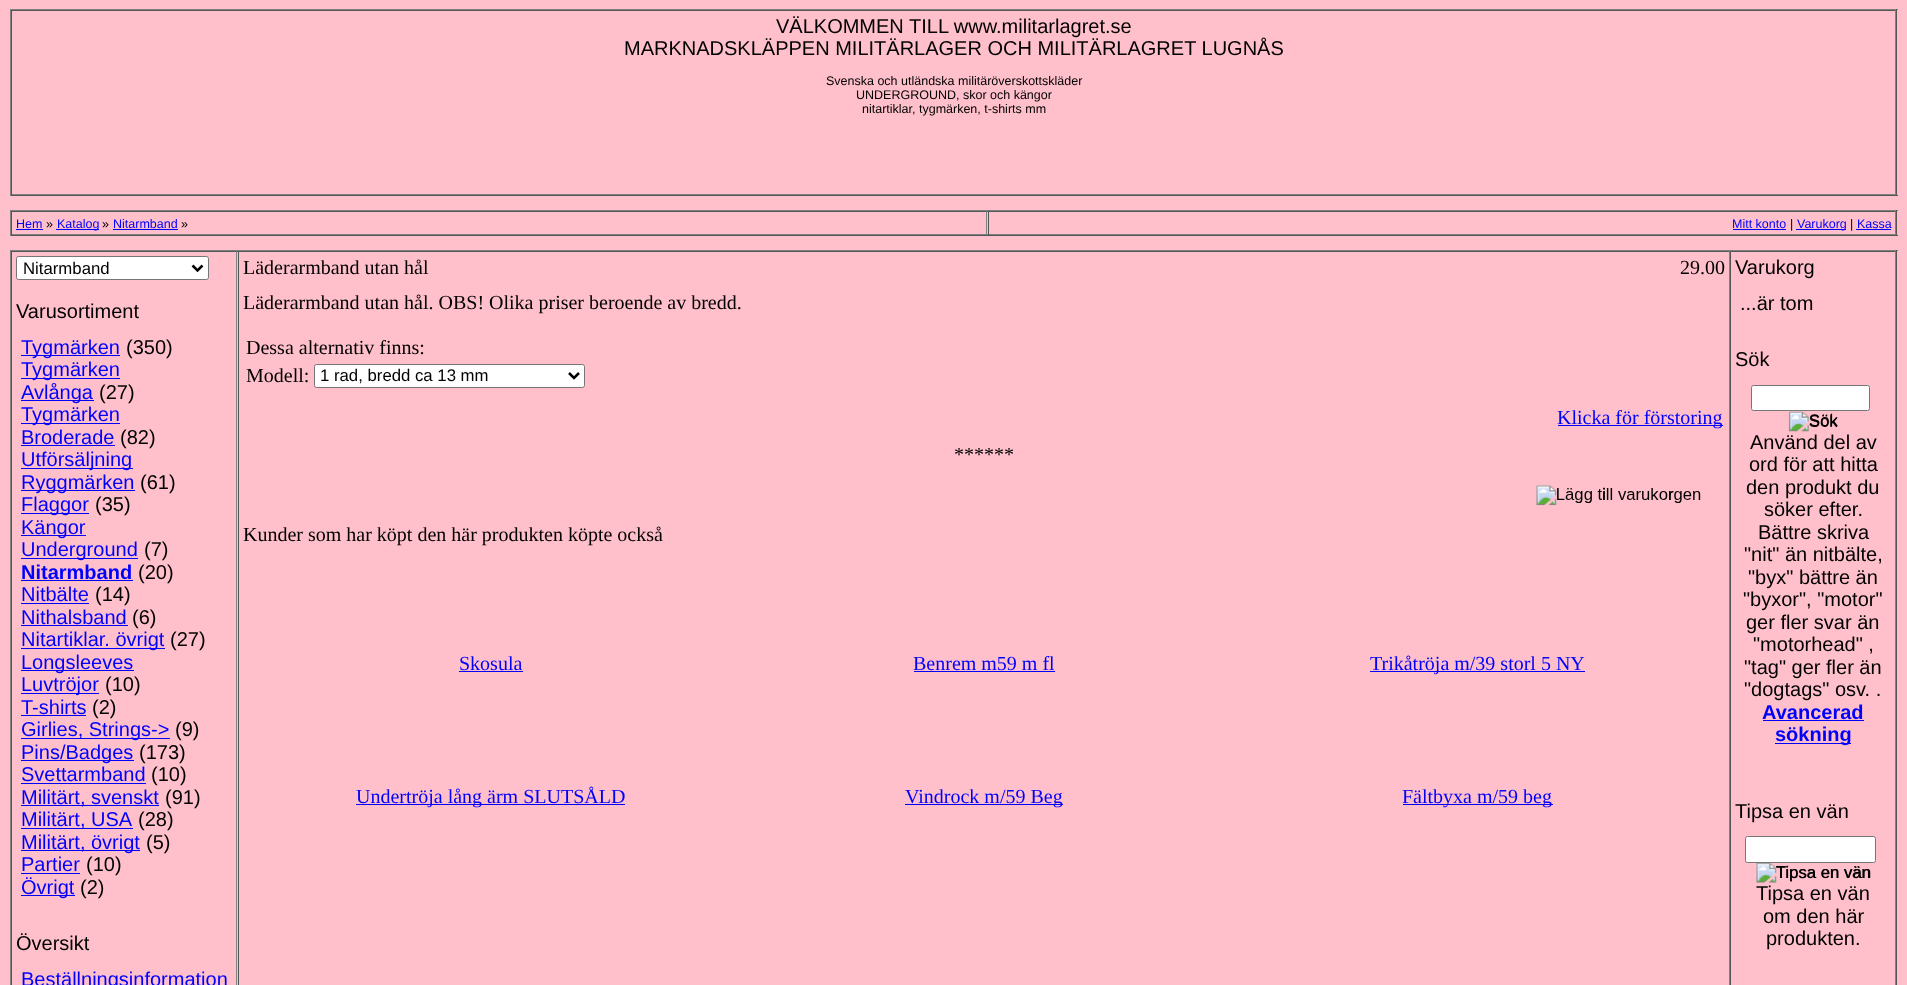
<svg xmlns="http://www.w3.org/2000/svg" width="1907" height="985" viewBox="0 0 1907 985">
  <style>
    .t1 { font: 20px Liberation Sans; fill: #000; }
    .t2 { font: 12.5px Liberation Sans; fill: #000; }
    .t3 { font: 12.5px Liberation Sans; fill: #00f; }
    .t4 { font: 16.75px Liberation Sans; fill: #000; }
    .t5 { font: 20px Liberation Sans; fill: #00f; }
    .t6 { font: bold 20px Liberation Sans; fill: #00f; }
    .t7 { font: 20px Liberation Serif; fill: #000; }
    .t8 { font: 20px Liberation Serif; fill: #00f; }
  </style>
  <rect width="100%" height="100%" fill="#ffc0cb"/>
  <rect x="10" y="9" width="1888" height="1" fill="#808080"/>
  <rect x="1896" y="9" width="1" height="187" fill="#555"/>
  <rect x="10" y="195" width="1888" height="1" fill="#555"/>
  <rect x="10" y="9" width="1" height="187" fill="#808080"/>
  <rect x="11" y="10" width="1885" height="1" fill="#555"/>
  <rect x="1895" y="10" width="1" height="185" fill="#808080"/>
  <rect x="11" y="194" width="1885" height="1" fill="#808080"/>
  <rect x="11" y="10" width="1" height="185" fill="#555"/>
  <text x="776" y="33" class="t1">VÄLKOMMEN TILL www.militarlagret.se</text>
  <text x="624" y="55" class="t1">MARKNADSKLÄPPEN MILITÄRLAGER OCH MILITÄRLAGRET LUGNÅS</text>
  <text x="826" y="85" class="t2">Svenska och utländska militäröverskottskläder</text>
  <text x="856" y="99" class="t2">UNDERGROUND, skor och kängor</text>
  <text x="862" y="113" class="t2">nitartiklar, tygmärken, t-shirts mm</text>
  <rect x="10" y="210" width="1888" height="1" fill="#808080"/>
  <rect x="1896" y="210" width="1" height="26" fill="#555"/>
  <rect x="10" y="235" width="1888" height="1" fill="#555"/>
  <rect x="10" y="210" width="1" height="26" fill="#808080"/>
  <rect x="11" y="211" width="1885" height="1" fill="#555"/>
  <rect x="986" y="211" width="1" height="24" fill="#808080"/>
  <rect x="11" y="234" width="977" height="1" fill="#808080"/>
  <rect x="11" y="211" width="1" height="24" fill="#555"/>
  <text x="16" y="228" class="t3">Hem</text>
  <rect x="16" y="229" width="27" height="1" fill="#00f"/>
  <text x="46" y="228" class="t2">»</text>
  <rect x="56" y="229" width="43" height="1" fill="#00f"/>
  <text x="57" y="228" class="t3">Katalog</text>
  <text x="102" y="228" class="t2">»</text>
  <text x="113" y="228" class="t3">Nitarmband</text>
  <rect x="113" y="229" width="65" height="1" fill="#00f"/>
  <text x="181" y="228" class="t2">»</text>
  <rect x="1895" y="211" width="1" height="24" fill="#808080"/>
  <rect x="988" y="234" width="908" height="1" fill="#808080"/>
  <rect x="988" y="211" width="1" height="24" fill="#555"/>
  <text x="1732" y="228" class="t3">Mitt konto</text>
  <rect x="1733" y="229" width="53" height="1" fill="#00f"/>
  <text x="1790" y="228" class="t2">|</text>
  <rect x="1796" y="229" width="50" height="1" fill="#00f"/>
  <text x="1797" y="228" class="t3">Varukorg</text>
  <text x="1850" y="228" class="t2">|</text>
  <text x="1857" y="228" class="t3">Kassa</text>
  <rect x="1856" y="229" width="35" height="1" fill="#00f"/>
  <rect x="10" y="250" width="1888" height="1" fill="#808080"/>
  <rect x="1896" y="250" width="1" height="735" fill="#555"/>
  <rect x="10" y="250" width="1" height="735" fill="#808080"/>
  <rect x="11" y="251" width="1885" height="1" fill="#555"/>
  <rect x="236" y="251" width="1" height="734" fill="#808080"/>
  <rect x="11" y="251" width="1" height="734" fill="#555"/>
  <rect x="16.5" y="256.5" width="192" height="23" rx="2" fill="#fff" stroke="#767676"/>
  <path d="M192.5 265.5L197.5 270.5L202.5 265.5" fill="none" stroke="#000" stroke-width="2.5"/>
  <text x="23" y="274" class="t4">Nitarmband</text>
  <text x="16" y="318" class="t1">Varusortiment</text>
  <rect x="21" y="355" width="99" height="1" fill="#00f"/>
  <text x="21" y="354" class="t5">Tygmärken</text>
  <text x="126" y="354" class="t1">(350)</text>
  <rect x="21" y="378" width="99" height="1" fill="#00f"/>
  <text x="21" y="376" class="t5">Tygmärken</text>
  <rect x="21" y="400" width="73" height="1" fill="#00f"/>
  <text x="21" y="399" class="t5">Avlånga</text>
  <text x="99" y="399" class="t1">(27)</text>
  <rect x="21" y="423" width="99" height="1" fill="#00f"/>
  <text x="21" y="421" class="t5">Tygmärken</text>
  <text x="21" y="444" class="t5">Broderade</text>
  <rect x="21" y="445" width="94" height="1" fill="#00f"/>
  <text x="120" y="444" class="t1">(82)</text>
  <rect x="21" y="468" width="112" height="1" fill="#00f"/>
  <text x="21" y="466" class="t5">Utförsäljning</text>
  <rect x="21" y="490" width="114" height="1" fill="#00f"/>
  <text x="21" y="489" class="t5">Ryggmärken</text>
  <text x="140" y="489" class="t1">(61)</text>
  <rect x="21" y="513" width="68" height="1" fill="#00f"/>
  <text x="21" y="511" class="t5">Flaggor</text>
  <text x="95" y="511" class="t1">(35)</text>
  <rect x="21" y="535" width="65" height="1" fill="#00f"/>
  <text x="21" y="534" class="t5">Kängor</text>
  <rect x="21" y="558" width="117" height="1" fill="#00f"/>
  <text x="21" y="556" class="t5">Underground</text>
  <text x="144" y="556" class="t1">(7)</text>
  <text x="21" y="579" class="t6">Nitarmband</text>
  <rect x="21" y="580" width="112" height="1" fill="#00f"/>
  <text x="138" y="579" class="t1">(20)</text>
  <text x="21" y="601" class="t5">Nitbälte</text>
  <rect x="21" y="603" width="68" height="1" fill="#00f"/>
  <text x="95" y="601" class="t1">(14)</text>
  <text x="21" y="624" class="t5">Nithalsband</text>
  <rect x="21" y="625" width="107" height="1" fill="#00f"/>
  <text x="132" y="624" class="t1">(6)</text>
  <rect x="21" y="648" width="144" height="1" fill="#00f"/>
  <text x="21" y="646" class="t5">Nitartiklar. övrigt</text>
  <text x="170" y="646" class="t1">(27)</text>
  <rect x="21" y="670" width="113" height="1" fill="#00f"/>
  <text x="21" y="669" class="t5">Longsleeves</text>
  <rect x="21" y="693" width="78" height="1" fill="#00f"/>
  <text x="21" y="691" class="t5">Luvtröjor</text>
  <text x="105" y="691" class="t1">(10)</text>
  <text x="21" y="714" class="t5">T-shirts</text>
  <rect x="21" y="715" width="65" height="1" fill="#00f"/>
  <text x="92" y="714" class="t1">(2)</text>
  <rect x="21" y="738" width="149" height="1" fill="#00f"/>
  <text x="21" y="736" class="t5">Girlies, Strings-&gt;</text>
  <text x="175" y="736" class="t1">(9)</text>
  <rect x="21" y="760" width="113" height="1" fill="#00f"/>
  <text x="21" y="759" class="t5">Pins/Badges</text>
  <text x="139" y="759" class="t1">(173)</text>
  <text x="21" y="781" class="t5">Svettarmband</text>
  <rect x="21" y="783" width="125" height="1" fill="#00f"/>
  <text x="151" y="781" class="t1">(10)</text>
  <rect x="21" y="805" width="138" height="1" fill="#00f"/>
  <text x="21" y="804" class="t5">Militärt, svenskt</text>
  <text x="165" y="804" class="t1">(91)</text>
  <rect x="21" y="828" width="112" height="1" fill="#00f"/>
  <text x="21" y="826" class="t5">Militärt, USA</text>
  <text x="138" y="826" class="t1">(28)</text>
  <rect x="21" y="850" width="119" height="1" fill="#00f"/>
  <text x="21" y="849" class="t5">Militärt, övrigt</text>
  <text x="146" y="849" class="t1">(5)</text>
  <text x="21" y="871" class="t5">Partier</text>
  <rect x="21" y="873" width="59" height="1" fill="#00f"/>
  <text x="86" y="871" class="t1">(10)</text>
  <rect x="21" y="895" width="54" height="1" fill="#00f"/>
  <text x="21" y="894" class="t5">Övrigt</text>
  <text x="80" y="894" class="t1">(2)</text>
  <text x="16" y="950" class="t1">Översikt</text>
  <text x="21" y="986" class="t5">Beställningsinformation</text>
  <rect x="1729" y="251" width="1" height="734" fill="#808080"/>
  <rect x="238" y="251" width="1" height="734" fill="#555"/>
  <text x="243" y="274" class="t7">Läderarmband utan hål</text>
  <text x="1680" y="274" class="t7">29.00</text>
  <text x="243" y="309" class="t7">Läderarmband utan hål. OBS! Olika priser beroende av bredd.</text>
  <text x="246" y="354" class="t7">Dessa alternativ finns:</text>
  <text x="246" y="382" class="t7">Modell:</text>
  <rect x="314.5" y="364.5" width="270" height="23" rx="2" fill="#fff" stroke="#767676"/>
  <path d="M569 373L574 378L579 373" fill="none" stroke="#000" stroke-width="2.5"/>
  <text x="320" y="381" class="t4">1 rad, bredd ca 13 mm</text>
  <rect x="1558" y="425" width="165" height="1" fill="#00f"/>
  <text x="1557" y="424" class="t8">Klicka för förstoring</text>
  <text x="954" y="461" class="t7">******</text>
  <image x="1536" y="485" width="165" height="21" href="images/1.png"/>
  <text x="1602" y="500" class="t4">i</text>
  <text x="1668" y="500" class="t4">r</text>
  <text x="243" y="541" class="t7">Kunder som har köpt den här produkten köpte också</text>
  <text x="459" y="670" class="t8">Skosula</text>
  <rect x="459" y="671" width="64" height="1" fill="#00f"/>
  <text x="913" y="670" class="t8">Benrem m59 m fl</text>
  <rect x="914" y="671" width="141" height="1" fill="#00f"/>
  <rect x="1370" y="671" width="215" height="1" fill="#00f"/>
  <text x="1370" y="670" class="t8">Trikåtröja m/39 storl 5 NY</text>
  <rect x="356" y="804" width="269" height="1" fill="#00f"/>
  <text x="356" y="803" class="t8">Undertröja lång ärm SLUTSÅLD</text>
  <rect x="905" y="804" width="158" height="1" fill="#00f"/>
  <text x="905" y="803" class="t8">Vindrock m/59 Beg</text>
  <rect x="1403" y="804" width="150" height="1" fill="#00f"/>
  <text x="1402" y="803" class="t8">Fältbyxa m/59 beg</text>
  <rect x="1895" y="251" width="1" height="734" fill="#808080"/>
  <rect x="1730" y="251" width="1" height="734" fill="#555"/>
  <text x="1735" y="274" class="t1">Varukorg</text>
  <text x="1740" y="310" class="t1">...är tom</text>
  <text x="1735" y="366" class="t1">Sök</text>
  <rect x="1751.5" y="385.5" width="118" height="25" rx="2" fill="#fff" stroke="#767676"/>
  <image x="1788" y="411" width="50" height="21" href="images/2.png"/>
  <text x="1809" y="426" class="t4">Sök</text>
  <text x="1750" y="449" class="t1">Använd del av</text>
  <text x="1749" y="471" class="t1">ord för att hitta</text>
  <text x="1746" y="494" class="t1">den produkt du</text>
  <text x="1764" y="516" class="t1">söker efter.</text>
  <text x="1758" y="539" class="t1">Bättre skriva</text>
  <text x="1744" y="561" class="t1">"nit" än nitbälte,</text>
  <text x="1748" y="584" class="t1">"byx" bättre än</text>
  <text x="1743" y="606" class="t1">"byxor", "motor"</text>
  <text x="1746" y="629" class="t1">ger fler svar än</text>
  <text x="1753" y="651" class="t1">"motorhead" ,</text>
  <text x="1744" y="674" class="t1">"tag" ger fler än</text>
  <text x="1744" y="696" class="t1">"dogtags" osv. .</text>
  <text x="1762" y="719" class="t6">Avancerad</text>
  <rect x="1763" y="720" width="101" height="1" fill="#00f"/>
  <rect x="1775" y="743" width="76" height="1" fill="#00f"/>
  <text x="1775" y="741" class="t6">sökning</text>
  <text x="1735" y="818" class="t1">Tipsa en vän</text>
  <rect x="1745.5" y="836.5" width="130" height="26" rx="2" fill="#fff" stroke="#767676"/>
  <image x="1756" y="863" width="114" height="20" href="images/3.png"/>
  <text x="1776" y="878" class="t4">Tipsa en vän</text>
  <text x="1756" y="900" class="t1">Tipsa en vän</text>
  <text x="1763" y="923" class="t1">om den här</text>
  <text x="1766" y="945" class="t1">produkten.</text>
</svg>
